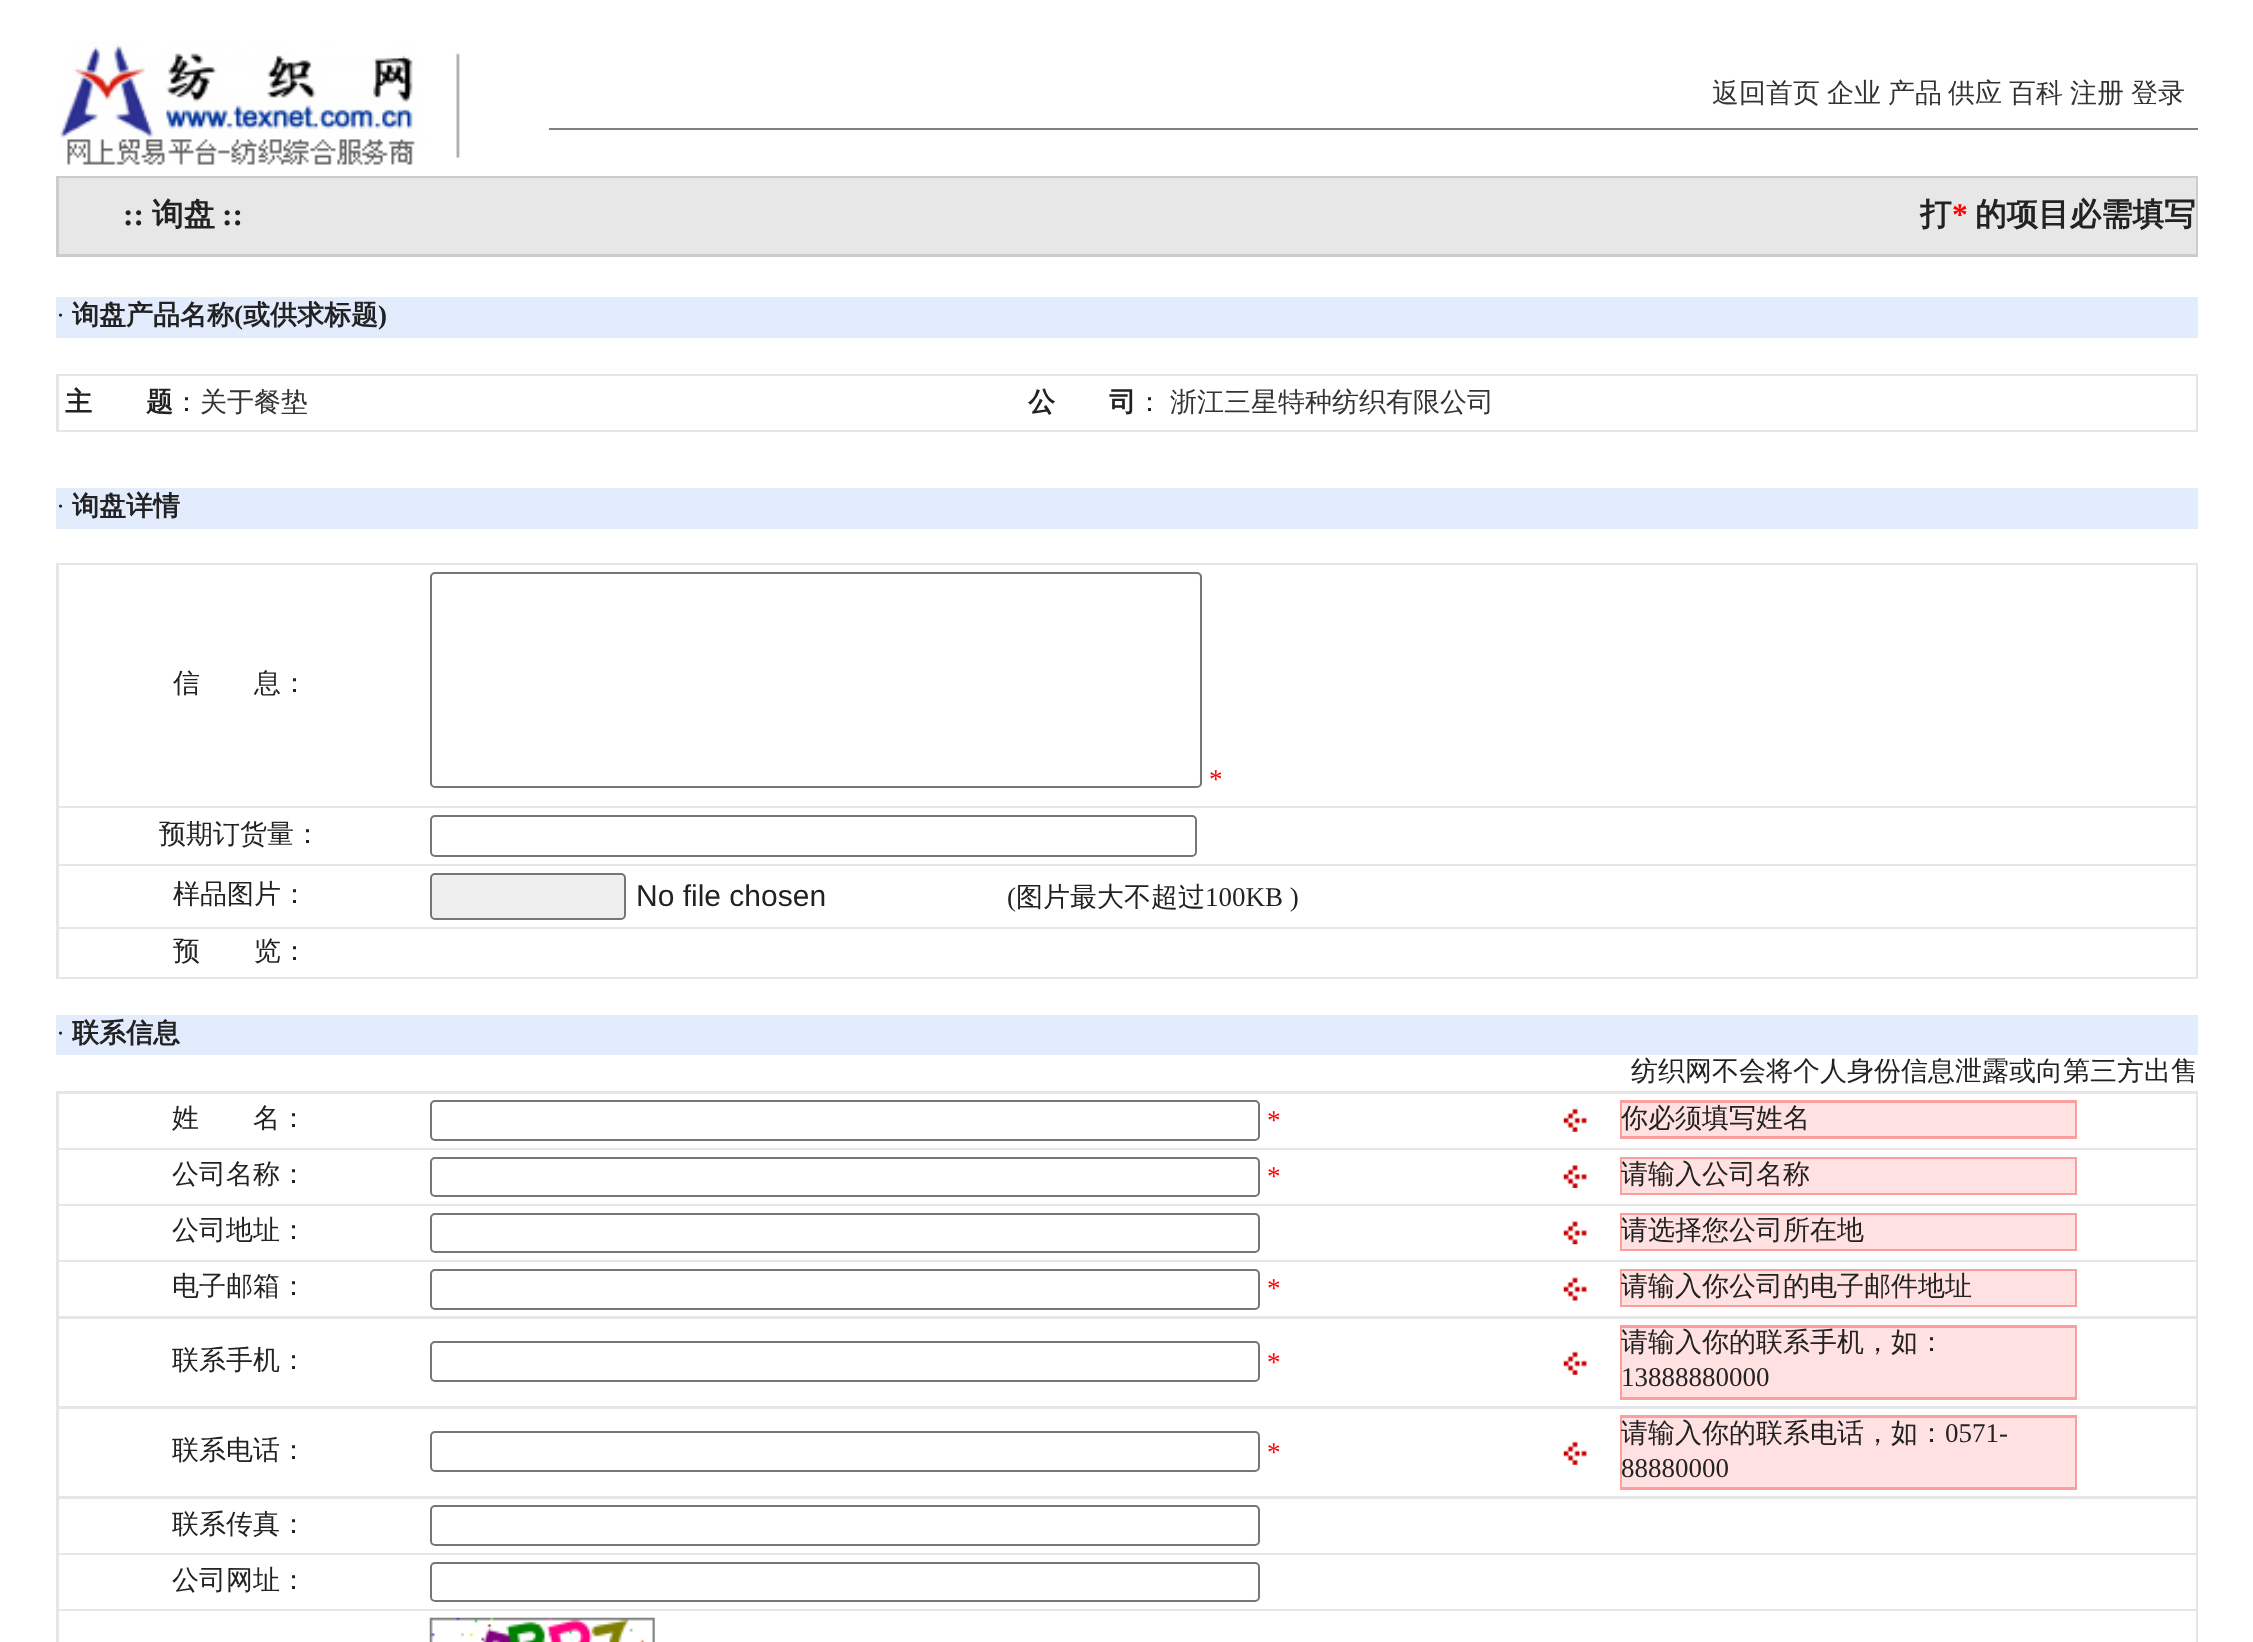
<svg xmlns="http://www.w3.org/2000/svg" width="2253" height="1642" viewBox="0 0 2253 1642">
  <style>
    .t1 { font: 500 27px WenQuanYi Zen Hei; fill: #333; }
    .t2 { font: bold 31.5px Liberation Serif; fill: #222; }
    .t3 { font: bold 31.5px WenQuanYi Zen Hei; fill: #222; }
    .t4 { font: bold 31.5px Liberation Serif; fill: #f00; }
    .t5 { font: 27px Liberation Serif; fill: #222; }
    .t6 { font: bold 27px WenQuanYi Zen Hei; fill: #222; }
    .t7 { font: bold 27px Liberation Serif; fill: #222; }
    .t8 { font: 500 27px WenQuanYi Zen Hei; fill: #222; }
    .t9 { font: 27px Liberation Serif; fill: #f00; }
    .t10 { font: 30px Liberation Sans; fill: #222; }
  </style>
  <rect width="100%" height="100%" fill="#fff"/>
  <image x="57" y="41" width="403" height="124" href="images/1.png"/>
  <text x="1712" y="102" class="t1">返回首页</text>
  <text x="1827" y="102" class="t1">企业</text>
  <text x="1888" y="102" class="t1">产品</text>
  <text x="1948" y="102" class="t1">供应</text>
  <text x="2009" y="102" class="t1">百科</text>
  <text x="2070" y="102" class="t1">注册</text>
  <text x="2131" y="102" class="t1">登录</text>
  <rect x="549" y="128" width="1649" height="2" fill="#808080"/>
  <rect x="56" y="176" width="2142" height="81" fill="#ccc"/>
  <rect x="59" y="178" width="2137" height="76" fill="#e7e7e7"/>
  <text x="123" y="225" class="t2">::</text>
  <text x="152" y="225" class="t3">询盘</text>
  <text x="222" y="225" class="t2">::</text>
  <text x="1920" y="225" class="t3">打</text>
  <text x="1952" y="225" class="t4">*</text>
  <text x="1975" y="225" class="t3">的项目必需填写</text>
  <rect x="56" y="297" width="2142" height="41" fill="#e2ecfc"/>
  <text x="56" y="324" class="t5">·</text>
  <text x="72" y="324" class="t6">询盘产品名称</text>
  <text x="234" y="324" class="t7">(</text>
  <text x="243" y="324" class="t6">或供求标题</text>
  <text x="378" y="324" class="t7">)</text>
  <rect x="56" y="374" width="2142" height="58" fill="#e6e6e6"/>
  <rect x="59" y="376" width="2137" height="54" fill="#fff"/>
  <text x="65" y="411" class="t6">主　　题</text>
  <text x="173" y="411" class="t8">：</text>
  <text x="200" y="411" class="t1">关于餐垫</text>
  <text x="1028" y="411" class="t6">公　　司</text>
  <text x="1136" y="411" class="t8">：</text>
  <text x="1170" y="411" class="t1">浙江三星特种纺织有限公司</text>
  <rect x="56" y="488" width="2142" height="41" fill="#e2ecfc"/>
  <text x="56" y="515" class="t5">·</text>
  <text x="72" y="515" class="t6">询盘详情</text>
  <rect x="56" y="563" width="2142" height="416" fill="#e6e6e6"/>
  <rect x="59" y="565" width="2137" height="241" fill="#fff"/>
  <text x="173" y="692" class="t8">信　　息：</text>
  <rect x="431" y="573" width="770" height="214" rx="4" fill="none" stroke="#767676" stroke-width="2"/>
  <text x="1209" y="788" class="t9">*</text>
  <rect x="59" y="808" width="2137" height="56" fill="#fff"/>
  <text x="159" y="843" class="t8">预期订货量：</text>
  <rect x="431" y="816" width="765" height="40" rx="4" fill="none" stroke="#767676" stroke-width="2"/>
  <rect x="59" y="866" width="2137" height="61" fill="#fff"/>
  <text x="173" y="903" class="t8">样品图片：</text>
  <rect x="431" y="874" width="194" height="45" rx="4" fill="#efefef" stroke="#767676" stroke-width="2"/>
  <text x="636" y="906" class="t10">No file chosen</text>
  <text x="1007" y="906" class="t5">(</text>
  <text x="1016" y="906" class="t8">图片最大不超过</text>
  <text x="1205" y="906" class="t5">100KB )</text>
  <rect x="59" y="929" width="2137" height="48" fill="#fff"/>
  <text x="173" y="960" class="t8">预　　览：</text>
  <rect x="56" y="1015" width="2142" height="40" fill="#e2ecfc"/>
  <text x="56" y="1042" class="t5">·</text>
  <text x="72" y="1042" class="t6">联系信息</text>
  <text x="1631" y="1080" class="t8">纺织网不会将个人身份信息泄露或向第三方出售</text>
  <rect x="56" y="1091" width="2142" height="551" fill="#e6e6e6"/>
  <rect x="59" y="1094" width="2137" height="54" fill="#fff"/>
  <text x="172" y="1127" class="t8">姓　　名：</text>
  <rect x="431" y="1101" width="828" height="39" rx="4" fill="none" stroke="#767676" stroke-width="2"/>
  <text x="1267" y="1129" class="t9">*</text>
  <image x="1563" y="1108" width="24" height="24" href="images/2.png"/>
  <rect x="1620" y="1100" width="457" height="39" fill="#fa9e9e"/>
  <rect x="1622" y="1103" width="453" height="33" fill="#ffe1e1"/>
  <text x="1621" y="1127" class="t8">你必须填写姓名</text>
  <rect x="59" y="1150" width="2137" height="54" fill="#fff"/>
  <text x="172" y="1183" class="t8">公司名称：</text>
  <rect x="431" y="1158" width="828" height="38" rx="4" fill="none" stroke="#767676" stroke-width="2"/>
  <text x="1267" y="1185" class="t9">*</text>
  <image x="1563" y="1165" width="24" height="23" href="images/3.png"/>
  <rect x="1620" y="1157" width="457" height="38" fill="#fa9e9e"/>
  <rect x="1622" y="1159" width="453" height="34" fill="#ffe1e1"/>
  <text x="1621" y="1183" class="t8">请输入公司名称</text>
  <rect x="59" y="1206" width="2137" height="54" fill="#fff"/>
  <text x="172" y="1239" class="t8">公司地址：</text>
  <rect x="431" y="1214" width="828" height="38" rx="4" fill="none" stroke="#767676" stroke-width="2"/>
  <image x="1563" y="1221" width="24" height="24" href="images/4.png"/>
  <rect x="1620" y="1213" width="457" height="38" fill="#fa9e9e"/>
  <rect x="1622" y="1215" width="453" height="34" fill="#ffe1e1"/>
  <text x="1621" y="1239" class="t8">请选择您公司所在地</text>
  <rect x="59" y="1262" width="2137" height="54" fill="#fff"/>
  <text x="172" y="1295" class="t8">电子邮箱：</text>
  <rect x="431" y="1270" width="828" height="39" rx="4" fill="none" stroke="#767676" stroke-width="2"/>
  <text x="1267" y="1297" class="t9">*</text>
  <image x="1563" y="1277" width="24" height="24" href="images/5.png"/>
  <rect x="1620" y="1269" width="457" height="38" fill="#fa9e9e"/>
  <rect x="1622" y="1271" width="453" height="34" fill="#ffe1e1"/>
  <text x="1621" y="1295" class="t8">请输入你公司的电子邮件地址</text>
  <rect x="59" y="1319" width="2137" height="87" fill="#fff"/>
  <text x="172" y="1369" class="t8">联系手机：</text>
  <rect x="431" y="1342" width="828" height="39" rx="4" fill="none" stroke="#767676" stroke-width="2"/>
  <text x="1267" y="1371" class="t9">*</text>
  <image x="1563" y="1351" width="24" height="24" href="images/2.png"/>
  <rect x="1620" y="1325" width="457" height="75" fill="#fa9e9e"/>
  <rect x="1622" y="1328" width="453" height="69" fill="#ffe1e1"/>
  <text x="1621" y="1351" class="t8">请输入你的联系手机，如：</text>
  <text x="1621" y="1386" class="t5">13888880000</text>
  <rect x="59" y="1409" width="2137" height="87" fill="#fff"/>
  <text x="172" y="1459" class="t8">联系电话：</text>
  <rect x="431" y="1432" width="828" height="39" rx="4" fill="none" stroke="#767676" stroke-width="2"/>
  <text x="1267" y="1461" class="t9">*</text>
  <image x="1563" y="1441" width="24" height="24" href="images/2.png"/>
  <rect x="1620" y="1415" width="457" height="75" fill="#fa9e9e"/>
  <rect x="1622" y="1418" width="453" height="69" fill="#ffe1e1"/>
  <text x="1621" y="1442" class="t8">请输入你的联系电话，如：</text>
  <text x="1945" y="1442" class="t5">0571-</text>
  <text x="1621" y="1477" class="t5">88880000</text>
  <rect x="59" y="1499" width="2137" height="54" fill="#fff"/>
  <text x="172" y="1533" class="t8">联系传真：</text>
  <rect x="431" y="1506" width="828" height="39" rx="4" fill="none" stroke="#767676" stroke-width="2"/>
  <rect x="59" y="1555" width="2137" height="54" fill="#fff"/>
  <text x="172" y="1589" class="t8">公司网址：</text>
  <rect x="431" y="1563" width="828" height="38" rx="4" fill="none" stroke="#767676" stroke-width="2"/>
  <rect x="59" y="1611" width="2137" height="31" fill="#fff"/>
  <image x="429" y="1617" width="226" height="25" href="images/6.png"/>
</svg>
